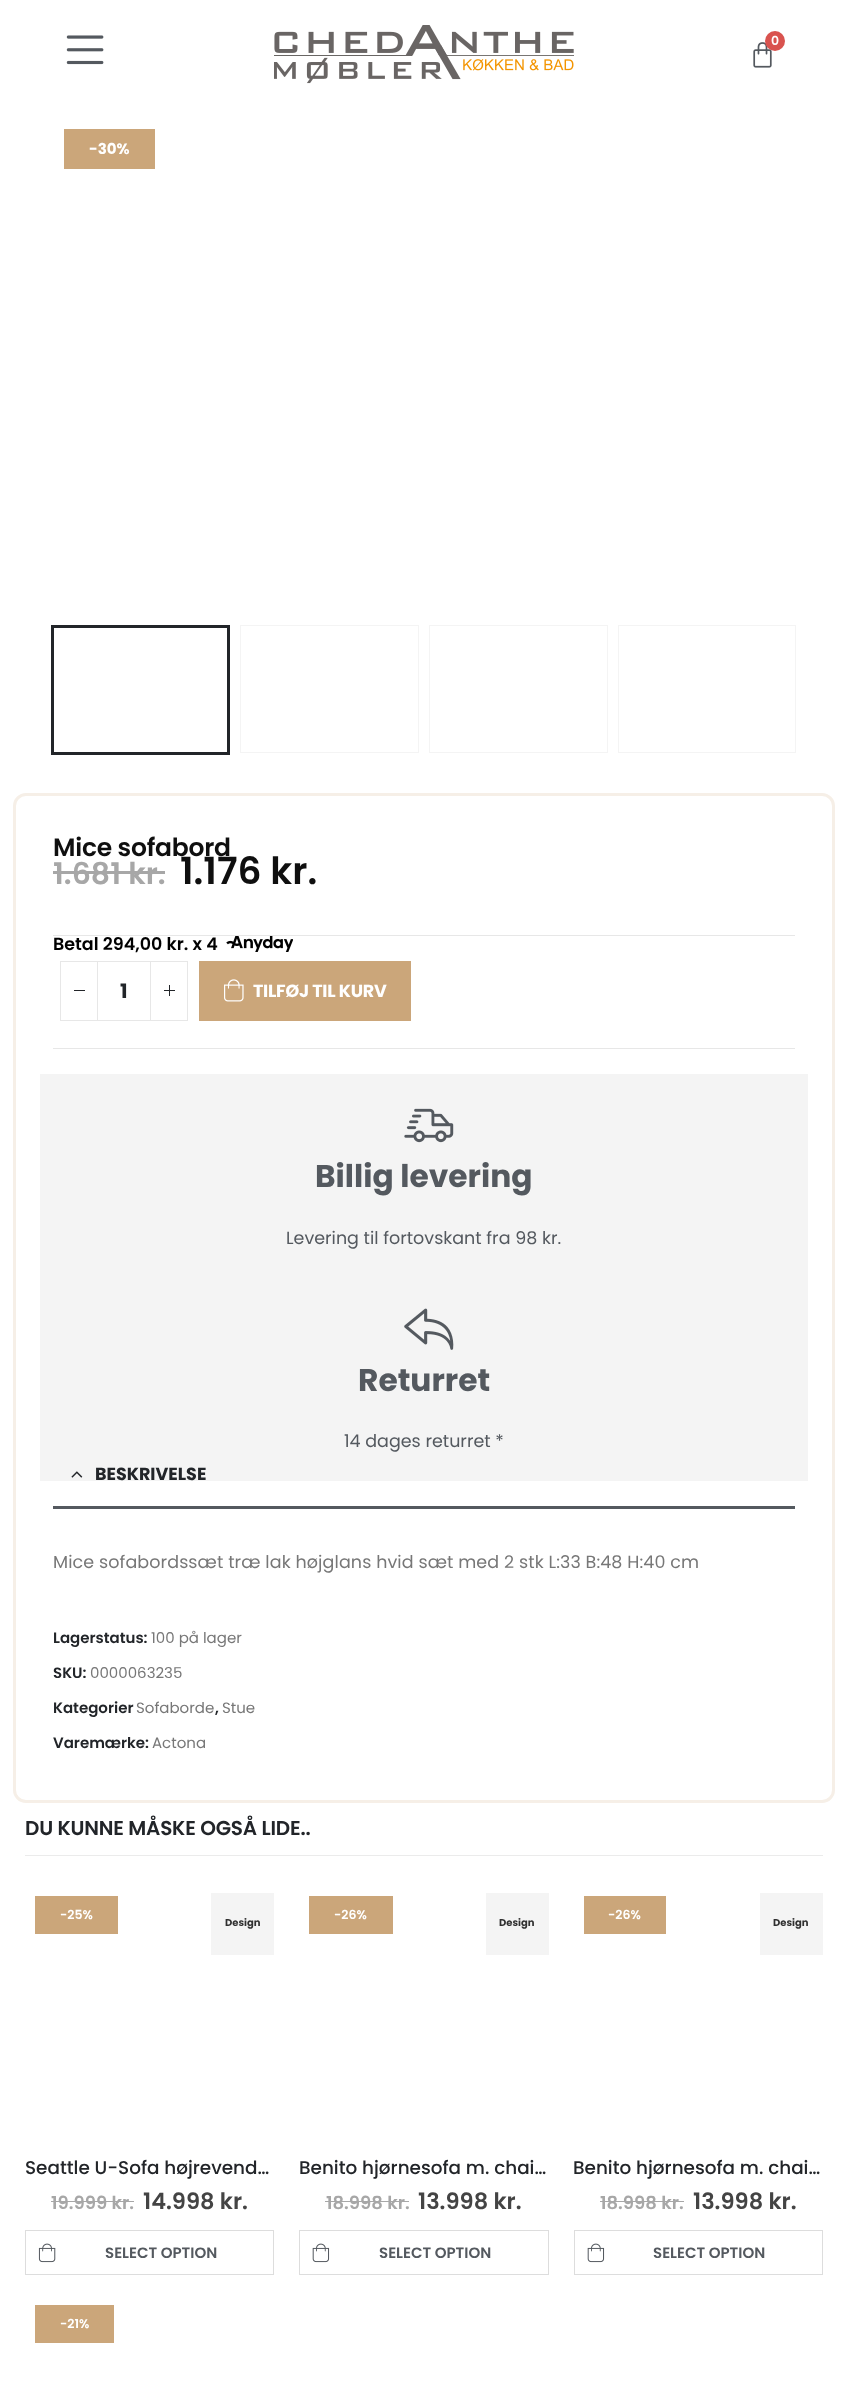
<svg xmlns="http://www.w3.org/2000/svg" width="847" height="2408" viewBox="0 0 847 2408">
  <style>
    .t1 { font: 600 12.5px Poppins; fill: #fff; }
    .t2 { font: bold 15px Poppins; fill: #fff; }
    .t3 { font: 600 25px Poppins; letter-spacing: -0.25px; fill: #0f0f0f; }
    .t4 { font: 600 30px Poppins; fill: #a7a7a7; }
    .t5 { font: 600 37.5px Poppins; fill: #0f0f0f; }
    .t6 { font: 600 17.5px Poppins; fill: #000; }
    .t7 { font: bold 20px Poppins; fill: #222529; }
    .t8 { font: bold 17.5px Poppins; letter-spacing: -0.25px; fill: #fff; }
    .t9 { font: bold 31.25px Poppins; fill: #54595f; }
    .t10 { font: 17.5px Poppins; fill: #54595f; }
    .t11 { font: bold 17.5px Poppins; fill: #222529; }
    .t12 { font: 17.5px Poppins; letter-spacing: 0.1px; fill: #777; }
    .t13 { font: 600 15px Poppins; fill: #222529; }
    .t14 { font: 15px Poppins; fill: #777; }
    .t15 { font: 600 20px Poppins; letter-spacing: -0.2px; fill: #222529; }
    .t16 { font: bold 10px Poppins; fill: #303030; }
    .t17 { font: 500 18.4px Poppins; fill: #222529; }
    .t18 { font: 600 18px Poppins; fill: #a7a7a7; }
    .t19 { font: 600 22.5px Poppins; fill: #444; }
    .t20 { font: 600 15px Poppins; fill: #54595f; }
  </style>
  <rect width="100%" height="100%" fill="#fff"/>
  <image x="66" y="35" width="38" height="30" href="images/1.png"/>
  <image x="274" y="25" width="300" height="59" href="images/2.png"/>
  <image x="753" y="42" width="19" height="26" href="images/3.png"/>
  <circle cx="775" cy="41" r="10" fill="#d9534f"/>
  <text x="771" y="45" class="t1">0</text>
  <rect x="64" y="129" width="91" height="40" fill="#cba67a"/>
  <text x="89" y="154" class="t2">-30%</text>
  <rect x="52.5" y="626.5" width="176" height="127" fill="none" stroke="#222529" stroke-width="3"/>
  <rect x="240.5" y="625.5" width="178" height="127" fill="none" stroke="#f4f4f4"/>
  <rect x="429.5" y="625.5" width="178" height="127" fill="none" stroke="#f4f4f4"/>
  <rect x="618.5" y="625.5" width="177" height="127" fill="none" stroke="#f4f4f4"/>
  <rect x="14.5" y="794.5" width="819" height="1007" rx="11.5" fill="none" stroke="#f6efe7" stroke-width="3"/>
  <text x="53" y="856" class="t3">Mice sofabord</text>
  <text x="53" y="884" class="t4">1.681 kr.</text>
  <rect x="53" y="871" width="112" height="3" fill="#a7a7a7"/>
  <text x="180" y="884" class="t5">1.176 kr.</text>
  <text x="53" y="950" class="t6">Betal 294,00 kr. x 4</text>
  <image x="226" y="936" width="67" height="16" href="images/4.png"/>
  <rect x="53" y="935" width="742" height="1" fill="#e7e7e7"/>
  <rect x="53" y="1048" width="742" height="1" fill="#e7e7e7"/>
  <rect x="96" y="961" width="55" height="1" fill="#e7e7e7"/>
  <rect x="96" y="1020" width="55" height="1" fill="#e7e7e7"/>
  <rect x="60.5" y="961.5" width="37" height="59" fill="none" stroke="#e7e7e7"/>
  <rect x="74" y="990" width="11" height="1" fill="#222529"/>
  <text x="120" y="998" class="t7">1</text>
  <rect x="150.5" y="961.5" width="37" height="59" fill="none" stroke="#e7e7e7"/>
  <rect x="164" y="990" width="11" height="1" fill="#222529"/>
  <rect x="169" y="985" width="1" height="11" fill="#222529"/>
  <rect x="199" y="961" width="212" height="60" fill="#cba67a"/>
  <image x="224" y="979" width="20" height="23" href="images/5.png"/>
  <text x="253" y="997" class="t8">TILFØJ TIL KURV</text>
  <rect x="40" y="1074" width="768" height="407" fill="#f4f4f4"/>
  <image x="404" y="1108" width="50" height="35" href="images/6.png"/>
  <text x="315" y="1187" class="t9">Billig levering</text>
  <text x="286" y="1244" class="t10">Levering til fortovskant fra 98 kr.</text>
  <image x="404" y="1308" width="50" height="42" href="images/7.png"/>
  <text x="358" y="1391" class="t9">Returret</text>
  <text x="344" y="1447" class="t10">14 dages returret *</text>
  <rect x="53" y="1506" width="742" height="3" fill="#54595f"/>
  <image x="71" y="1471" width="12" height="7" href="images/8.png"/>
  <text x="95" y="1480" class="t11">BESKRIVELSE</text>
  <text x="53" y="1568" class="t12">Mice sofabordssæt træ lak højglans hvid sæt med 2 stk L:33 B:48 H:40 cm</text>
  <text x="53" y="1643" class="t13">Lagerstatus:</text>
  <text x="151" y="1643" class="t14">100 på lager</text>
  <text x="53" y="1678" class="t13">SKU:</text>
  <text x="90" y="1678" class="t14">0000063235</text>
  <text x="53" y="1713" class="t13">Kategorier</text>
  <text x="136" y="1713" class="t14">Sofaborde</text>
  <text x="215" y="1713" class="t13">,</text>
  <text x="222" y="1713" class="t14">Stue</text>
  <text x="53" y="1748" class="t13">Varemærke:</text>
  <text x="152" y="1748" class="t14">Actona</text>
  <rect x="25" y="1855" width="798" height="1" fill="#ebebeb"/>
  <text x="25" y="1835" class="t15">DU KUNNE MÅSKE OGSÅ LIDE..</text>
  <rect x="35" y="1896" width="83" height="38" fill="#cba67a"/>
  <text x="60" y="1919" class="t1">-25%</text>
  <rect x="211" y="1893" width="63" height="62" fill="#f4f4f4"/>
  <text x="225" y="1926" class="t16">Design</text>
  <text x="25" y="2174" class="t17">Seattle U-Sofa højrevend…</text>
  <text x="51" y="2209" class="t18">19.999 kr.</text>
  <rect x="51" y="2201" width="83" height="1" fill="#a7a7a7"/>
  <text x="143" y="2209" class="t19">14.998 kr.</text>
  <rect x="25.5" y="2230.5" width="248" height="44" fill="none" stroke="#ddd"/>
  <image x="38" y="2243" width="18" height="20" href="images/9.png"/>
  <text x="105" y="2258" class="t20">SELECT OPTION</text>
  <rect x="309" y="1896" width="84" height="38" fill="#cba67a"/>
  <text x="334" y="1919" class="t1">-26%</text>
  <rect x="486" y="1893" width="63" height="62" fill="#f4f4f4"/>
  <text x="499" y="1926" class="t16">Design</text>
  <text x="299" y="2174" class="t17">Benito hjørnesofa m. chai…</text>
  <text x="326" y="2209" class="t18">18.998 kr.</text>
  <rect x="325" y="2201" width="84" height="1" fill="#a7a7a7"/>
  <text x="418" y="2209" class="t19">13.998 kr.</text>
  <rect x="299.5" y="2230.5" width="249" height="44" fill="none" stroke="#ddd"/>
  <image x="312" y="2243" width="18" height="20" href="images/10.png"/>
  <text x="379" y="2258" class="t20">SELECT OPTION</text>
  <rect x="584" y="1896" width="82" height="38" fill="#cba67a"/>
  <text x="608" y="1919" class="t1">-26%</text>
  <rect x="760" y="1893" width="63" height="62" fill="#f4f4f4"/>
  <text x="773" y="1926" class="t16">Design</text>
  <text x="573" y="2174" class="t17">Benito hjørnesofa m. chai…</text>
  <text x="600" y="2209" class="t18">18.998 kr.</text>
  <rect x="600" y="2201" width="84" height="1" fill="#a7a7a7"/>
  <text x="693" y="2209" class="t19">13.998 kr.</text>
  <rect x="574.5" y="2230.5" width="248" height="44" fill="none" stroke="#ddd"/>
  <image x="587" y="2243" width="18" height="20" href="images/10.png"/>
  <text x="653" y="2258" class="t20">SELECT OPTION</text>
  <rect x="35" y="2305" width="79" height="38" fill="#cba67a"/>
  <text x="60" y="2328" class="t1">-21%</text>
</svg>
